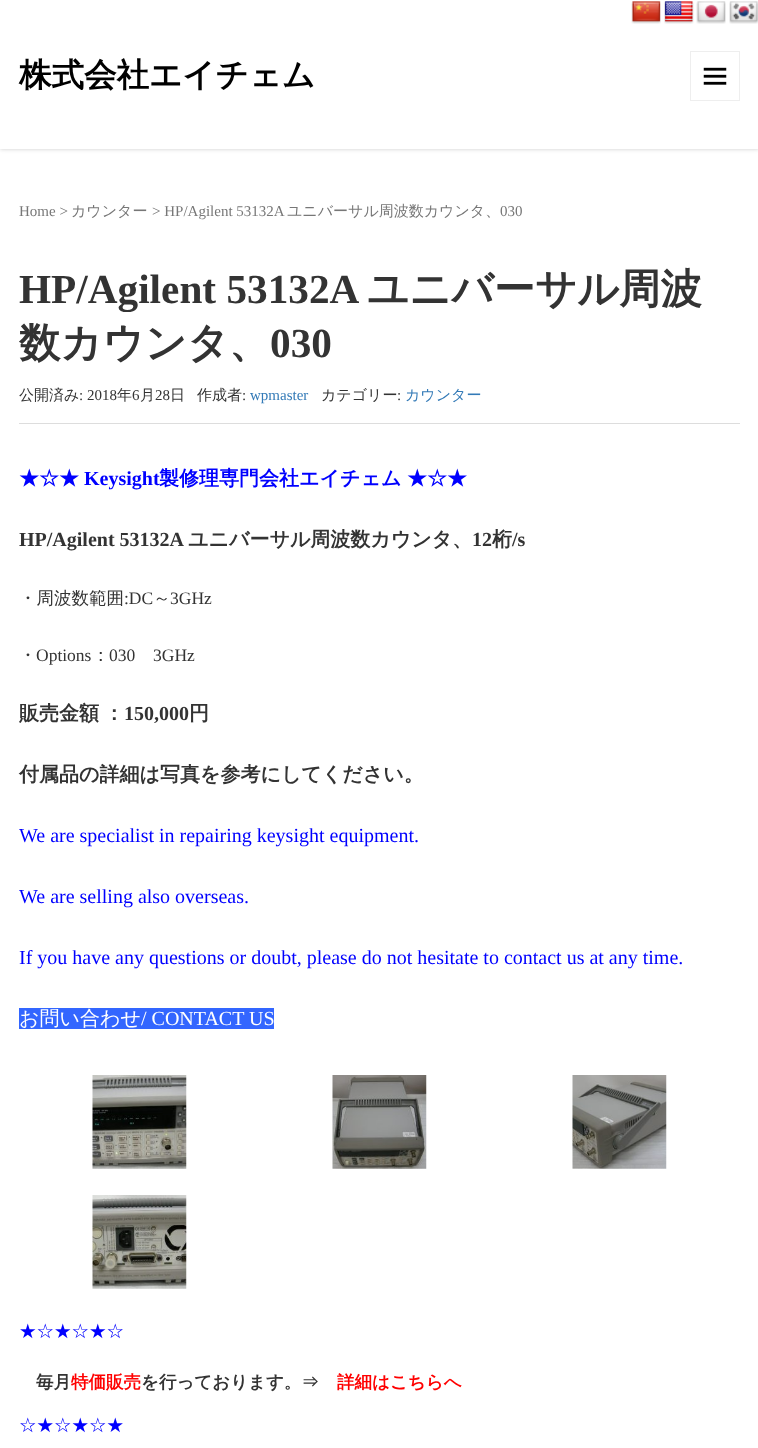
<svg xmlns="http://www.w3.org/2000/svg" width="758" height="1448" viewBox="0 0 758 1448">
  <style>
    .t1 { font: bold 32.5px WenQuanYi Zen Hei; fill: #000; }
    .t2 { font: 15px Liberation Serif; fill: #777; }
    .t3 { font: 500 15px WenQuanYi Zen Hei; fill: #777; }
    .t4 { font: bold 41.25px Liberation Serif; fill: #333; }
    .t5 { font: bold 41.25px WenQuanYi Zen Hei; fill: #333; }
    .t6 { font: 500 15px WenQuanYi Zen Hei; fill: #333; }
    .t7 { font: 15px Liberation Serif; fill: #333; }
    .t8 { font: 15px Liberation Serif; fill: #337ab7; }
    .t9 { font: 500 15px WenQuanYi Zen Hei; fill: #337ab7; }
    .t10 { font: bold 20px WenQuanYi Zen Hei; fill: #00f; }
    .t11 { font: bold 20px Liberation Serif; fill: #00f; }
    .t12 { font: bold 20px Liberation Serif; fill: #333; }
    .t13 { font: bold 20px WenQuanYi Zen Hei; fill: #333; }
    .t14 { font: 500 17.5px WenQuanYi Zen Hei; fill: #333; }
    .t15 { font: 17.5px Liberation Serif; fill: #333; }
    .t16 { font: 20px Liberation Serif; fill: #00f; }
    .t17 { font: 500 20px WenQuanYi Zen Hei; fill: #fff; }
    .t18 { font: 20px Liberation Serif; fill: #fff; }
    .t19 { font: 500 17.5px WenQuanYi Zen Hei; fill: #00f; }
    .t20 { font: bold 17.5px WenQuanYi Zen Hei; fill: #333; }
    .t21 { font: bold 17.5px WenQuanYi Zen Hei; fill: #f00; }
  </style>
  <rect width="100%" height="100%" fill="#fff"/>
  <rect x="0" y="0" width="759" height="149" fill="#00000033" filter="blur(2px)"/>
  <rect x="0" y="0" width="758" height="149" fill="#fff"/>
  <image x="631" y="1" width="30" height="23" href="images/1.png"/>
  <image x="664" y="1" width="30" height="23" href="images/2.png"/>
  <image x="696" y="1" width="30" height="23" href="images/3.png"/>
  <image x="729" y="1" width="29" height="23" href="images/4.png"/>
  <text x="19" y="86" class="t1">株式会社エイチェム</text>
  <rect x="690.5" y="51.5" width="49" height="49" fill="none" stroke="#eee"/>
  <image x="703" y="67" width="24" height="18" href="images/5.png"/>
  <text x="19" y="216" class="t2">Home &gt;</text>
  <text x="71" y="216" class="t3">カウンター</text>
  <text x="152" y="216" class="t2">&gt; HP/Agilent 53132A</text>
  <text x="287" y="216" class="t3">ユニバーサル周波数カウンタ、</text>
  <text x="500" y="216" class="t2">030</text>
  <text x="19" y="303" class="t4">HP/Agilent 53132A</text>
  <text x="367" y="303" class="t5">ユニバーサル周波</text>
  <text x="19" y="357" class="t5">数カウンタ、</text>
  <text x="270" y="357" class="t4">030</text>
  <rect x="19" y="423" width="721" height="1" fill="#ddd"/>
  <text x="19" y="400" class="t6">公開済み</text>
  <text x="79" y="400" class="t7">: 2018</text>
  <text x="117" y="400" class="t6">年</text>
  <text x="132" y="400" class="t7">6</text>
  <text x="140" y="400" class="t6">月</text>
  <text x="155" y="400" class="t7">28</text>
  <text x="170" y="400" class="t6">日</text>
  <text x="197" y="400" class="t6">作成者</text>
  <text x="242" y="400" class="t7">:</text>
  <text x="250" y="400" class="t8">wpmaster</text>
  <text x="321" y="400" class="t6">カテゴリー</text>
  <text x="397" y="400" class="t7">:</text>
  <text x="405" y="400" class="t9">カウンター</text>
  <text x="19" y="485" class="t10">★☆★</text>
  <text x="84" y="485" class="t11">Keysight</text>
  <text x="159" y="485" class="t10">製修理専門会社エイチェム</text>
  <text x="407" y="485" class="t10">★☆★</text>
  <text x="19" y="546" class="t12">HP/Agilent 53132A</text>
  <text x="188" y="546" class="t13">ユニバーサル周波数カウンタ、</text>
  <text x="472" y="546" class="t12">12</text>
  <text x="492" y="546" class="t13">桁</text>
  <text x="512" y="546" class="t12">/s</text>
  <text x="19" y="604" class="t14">・周波数範囲</text>
  <text x="124" y="604" class="t15">:DC</text>
  <text x="153" y="604" class="t14">～</text>
  <text x="170" y="604" class="t15">3GHz</text>
  <text x="19" y="661" class="t14">・</text>
  <text x="36" y="661" class="t15">Options</text>
  <text x="92" y="661" class="t14">：</text>
  <text x="109" y="661" class="t15">030</text>
  <text x="153" y="661" class="t15">3GHz</text>
  <text x="19" y="720" word-spacing="-1" class="t13">販売金額 ：</text>
  <text x="124" y="720" class="t12">150,000</text>
  <text x="189" y="720" class="t13">円</text>
  <text x="19" y="781" class="t13">付属品の詳細は写真を参考にしてください。</text>
  <text x="19" y="842" class="t16">We are specialist in repairing keysight equipment.</text>
  <text x="19" y="903" class="t16">We are selling also overseas.</text>
  <text x="19" y="964" class="t16">If you have any questions or doubt, please do not hesitate to contact us at any time.</text>
  <rect x="19" y="1008" width="255" height="21" fill="#36f"/>
  <text x="19" y="1025" class="t17">お問い合わせ</text>
  <text x="141" y="1025" class="t18">/ CONTACT US</text>
  <image x="92" y="1075" width="95" height="94" href="images/6.png"/>
  <image x="332" y="1075" width="95" height="94" href="images/7.png"/>
  <image x="572" y="1075" width="95" height="94" href="images/8.png"/>
  <image x="92" y="1195" width="95" height="94" href="images/9.png"/>
  <text x="19" y="1337" class="t19">★☆★☆★☆</text>
  <text x="36" y="1388" class="t20">毎月</text>
  <text x="71" y="1388" class="t21">特価販売</text>
  <text x="141" y="1388" class="t20">を行っております。⇒</text>
  <text x="337" y="1388" class="t21">詳細はこちらへ</text>
  <text x="19" y="1431" class="t19">☆★☆★☆★</text>
</svg>
